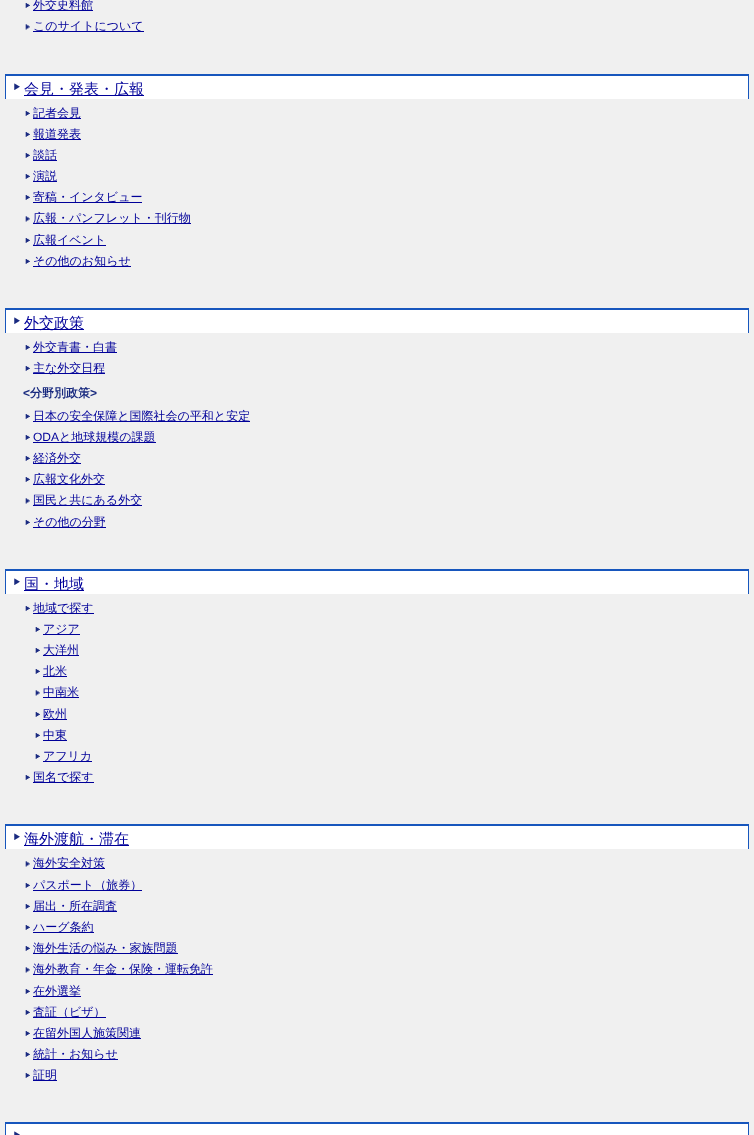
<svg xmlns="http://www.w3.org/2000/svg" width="754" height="1135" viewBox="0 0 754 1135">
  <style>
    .t1 { font: 500 12px WenQuanYi Zen Hei; fill: #009; }
    .t2 { font: 500 15px WenQuanYi Zen Hei; fill: #009; }
    .t3 { font: bold 12px Liberation Sans; fill: #192a7f; }
    .t4 { font: bold 12px WenQuanYi Zen Hei; fill: #192a7f; }
    .t5 { font: 12px Liberation Sans; fill: #009; }
  </style>
  <rect width="100%" height="100%" fill="#f0f0f0"/>
  <image x="25" y="3" width="5" height="5" href="images/1.png"/>
  <rect x="33" y="10" width="60" height="1" fill="#009"/>
  <text x="33" y="9" class="t1">外交史料館</text>
  <image x="25" y="24" width="5" height="6" href="images/2.png"/>
  <rect x="33" y="31" width="111" height="1" fill="#009"/>
  <text x="33" y="30" class="t1">このサイトについて</text>
  <rect x="6" y="76" width="742" height="23" fill="#fff"/>
  <rect x="5" y="74" width="744" height="2" fill="#1756bd"/>
  <rect x="748" y="74" width="1" height="25" fill="#1756bd"/>
  <rect x="5" y="74" width="1" height="25" fill="#1756bd"/>
  <image x="14" y="83" width="6" height="7" href="images/3.png"/>
  <rect x="24" y="95" width="120" height="1" fill="#009"/>
  <text x="24" y="94" class="t2">会見・発表・広報</text>
  <image x="25" y="111" width="5" height="5" href="images/1.png"/>
  <rect x="33" y="118" width="48" height="1" fill="#009"/>
  <text x="33" y="117" class="t1">記者会見</text>
  <image x="25" y="132" width="5" height="5" href="images/1.png"/>
  <rect x="33" y="139" width="48" height="1" fill="#009"/>
  <text x="33" y="138" class="t1">報道発表</text>
  <image x="25" y="153" width="5" height="5" href="images/1.png"/>
  <rect x="33" y="160" width="24" height="1" fill="#009"/>
  <text x="33" y="159" class="t1">談話</text>
  <image x="25" y="174" width="5" height="5" href="images/1.png"/>
  <rect x="33" y="181" width="24" height="1" fill="#009"/>
  <text x="33" y="180" class="t1">演説</text>
  <image x="25" y="195" width="5" height="5" href="images/1.png"/>
  <rect x="33" y="202" width="109" height="1" fill="#009"/>
  <text x="33" y="201" class="t1">寄稿・インタビュー</text>
  <image x="25" y="216" width="5" height="6" href="images/2.png"/>
  <rect x="33" y="223" width="158" height="1" fill="#009"/>
  <text x="33" y="222" class="t1">広報・パンフレット・刊行物</text>
  <image x="25" y="238" width="5" height="5" href="images/1.png"/>
  <rect x="33" y="245" width="73" height="1" fill="#009"/>
  <text x="33" y="244" class="t1">広報イベント</text>
  <image x="25" y="259" width="5" height="5" href="images/1.png"/>
  <rect x="33" y="266" width="98" height="1" fill="#009"/>
  <text x="33" y="265" class="t1">その他のお知らせ</text>
  <rect x="6" y="310" width="742" height="23" fill="#fff"/>
  <rect x="5" y="308" width="744" height="2" fill="#1756bd"/>
  <rect x="748" y="308" width="1" height="25" fill="#1756bd"/>
  <rect x="5" y="308" width="1" height="25" fill="#1756bd"/>
  <image x="14" y="317" width="6" height="7" href="images/3.png"/>
  <rect x="24" y="329" width="60" height="1" fill="#009"/>
  <text x="24" y="328" class="t2">外交政策</text>
  <image x="25" y="345" width="5" height="5" href="images/1.png"/>
  <rect x="33" y="352" width="84" height="1" fill="#009"/>
  <text x="33" y="351" class="t1">外交青書・白書</text>
  <image x="25" y="366" width="5" height="5" href="images/1.png"/>
  <rect x="33" y="373" width="72" height="1" fill="#009"/>
  <text x="33" y="372" class="t1">主な外交日程</text>
  <text x="23" y="397" class="t3">&lt;</text>
  <text x="30" y="397" class="t4">分野別政策</text>
  <text x="90" y="397" class="t3">&gt;</text>
  <image x="25" y="414" width="5" height="5" href="images/1.png"/>
  <rect x="33" y="421" width="217" height="1" fill="#009"/>
  <text x="33" y="420" class="t1">日本の安全保障と国際社会の平和と安定</text>
  <image x="25" y="435" width="5" height="5" href="images/1.png"/>
  <text x="33" y="441" class="t5">ODA</text>
  <rect x="33" y="442" width="123" height="1" fill="#009"/>
  <text x="59" y="441" class="t1">と地球規模の課題</text>
  <image x="25" y="456" width="5" height="5" href="images/1.png"/>
  <rect x="33" y="463" width="48" height="1" fill="#009"/>
  <text x="33" y="462" class="t1">経済外交</text>
  <image x="25" y="477" width="5" height="5" href="images/1.png"/>
  <rect x="33" y="484" width="72" height="1" fill="#009"/>
  <text x="33" y="483" class="t1">広報文化外交</text>
  <image x="25" y="498" width="5" height="6" href="images/2.png"/>
  <rect x="33" y="505" width="109" height="1" fill="#009"/>
  <text x="33" y="504" class="t1">国民と共にある外交</text>
  <image x="25" y="520" width="5" height="5" href="images/1.png"/>
  <rect x="33" y="527" width="73" height="1" fill="#009"/>
  <text x="33" y="526" class="t1">その他の分野</text>
  <rect x="6" y="571" width="742" height="23" fill="#fff"/>
  <rect x="5" y="569" width="744" height="2" fill="#1756bd"/>
  <rect x="748" y="569" width="1" height="25" fill="#1756bd"/>
  <rect x="5" y="569" width="1" height="25" fill="#1756bd"/>
  <image x="14" y="578" width="6" height="7" href="images/3.png"/>
  <rect x="24" y="590" width="60" height="1" fill="#009"/>
  <text x="24" y="589" class="t2">国・地域</text>
  <image x="25" y="606" width="5" height="5" href="images/1.png"/>
  <rect x="33" y="613" width="61" height="1" fill="#009"/>
  <text x="33" y="612" class="t1">地域で探す</text>
  <image x="35" y="627" width="5" height="5" href="images/1.png"/>
  <rect x="43" y="634" width="37" height="1" fill="#009"/>
  <text x="43" y="633" class="t1">アジア</text>
  <image x="35" y="648" width="5" height="5" href="images/1.png"/>
  <rect x="43" y="655" width="36" height="1" fill="#009"/>
  <text x="43" y="654" class="t1">大洋州</text>
  <image x="35" y="669" width="5" height="5" href="images/1.png"/>
  <rect x="43" y="676" width="24" height="1" fill="#009"/>
  <text x="43" y="675" class="t1">北米</text>
  <image x="35" y="690" width="5" height="6" href="images/2.png"/>
  <rect x="43" y="697" width="36" height="1" fill="#009"/>
  <text x="43" y="696" class="t1">中南米</text>
  <image x="35" y="712" width="5" height="5" href="images/1.png"/>
  <rect x="43" y="719" width="24" height="1" fill="#009"/>
  <text x="43" y="718" class="t1">欧州</text>
  <image x="35" y="733" width="5" height="5" href="images/1.png"/>
  <rect x="43" y="740" width="24" height="1" fill="#009"/>
  <text x="43" y="739" class="t1">中東</text>
  <image x="35" y="754" width="5" height="5" href="images/1.png"/>
  <rect x="43" y="761" width="49" height="1" fill="#009"/>
  <text x="43" y="760" class="t1">アフリカ</text>
  <image x="25" y="775" width="5" height="5" href="images/1.png"/>
  <rect x="33" y="782" width="61" height="1" fill="#009"/>
  <text x="33" y="781" class="t1">国名で探す</text>
  <rect x="6" y="826" width="742" height="23" fill="#fff"/>
  <rect x="5" y="824" width="744" height="2" fill="#1756bd"/>
  <rect x="748" y="824" width="1" height="25" fill="#1756bd"/>
  <rect x="5" y="824" width="1" height="25" fill="#1756bd"/>
  <image x="14" y="833" width="6" height="7" href="images/3.png"/>
  <rect x="24" y="845" width="105" height="1" fill="#009"/>
  <text x="24" y="844" class="t2">海外渡航・滞在</text>
  <image x="25" y="861" width="5" height="6" href="images/2.png"/>
  <rect x="33" y="868" width="72" height="1" fill="#009"/>
  <text x="33" y="867" class="t1">海外安全対策</text>
  <image x="25" y="883" width="5" height="5" href="images/1.png"/>
  <rect x="33" y="890" width="109" height="1" fill="#009"/>
  <text x="33" y="889" class="t1">パスポート（旅券）</text>
  <image x="25" y="904" width="5" height="5" href="images/1.png"/>
  <rect x="33" y="911" width="84" height="1" fill="#009"/>
  <text x="33" y="910" class="t1">届出・所在調査</text>
  <image x="25" y="925" width="5" height="5" href="images/1.png"/>
  <rect x="33" y="932" width="61" height="1" fill="#009"/>
  <text x="33" y="931" class="t1">ハーグ条約</text>
  <image x="25" y="946" width="5" height="5" href="images/1.png"/>
  <rect x="33" y="953" width="145" height="1" fill="#009"/>
  <text x="33" y="952" class="t1">海外生活の悩み・家族問題</text>
  <image x="25" y="967" width="5" height="6" href="images/2.png"/>
  <rect x="33" y="974" width="180" height="1" fill="#009"/>
  <text x="33" y="973" class="t1">海外教育・年金・保険・運転免許</text>
  <image x="25" y="989" width="5" height="5" href="images/1.png"/>
  <rect x="33" y="996" width="48" height="1" fill="#009"/>
  <text x="33" y="995" class="t1">在外選挙</text>
  <image x="25" y="1010" width="5" height="5" href="images/1.png"/>
  <rect x="33" y="1017" width="73" height="1" fill="#009"/>
  <text x="33" y="1016" class="t1">査証（ビザ）</text>
  <image x="25" y="1031" width="5" height="5" href="images/1.png"/>
  <rect x="33" y="1038" width="108" height="1" fill="#009"/>
  <text x="33" y="1037" class="t1">在留外国人施策関連</text>
  <image x="25" y="1052" width="5" height="5" href="images/1.png"/>
  <rect x="33" y="1059" width="85" height="1" fill="#009"/>
  <text x="33" y="1058" class="t1">統計・お知らせ</text>
  <image x="25" y="1073" width="5" height="5" href="images/1.png"/>
  <rect x="33" y="1080" width="24" height="1" fill="#009"/>
  <text x="33" y="1079" class="t1">証明</text>
  <rect x="6" y="1124" width="742" height="11" fill="#fff"/>
  <rect x="5" y="1122" width="744" height="2" fill="#1756bd"/>
  <rect x="748" y="1122" width="1" height="13" fill="#1756bd"/>
  <rect x="5" y="1122" width="1" height="13" fill="#1756bd"/>
  <image x="14" y="1131" width="6" height="4" href="images/4.png"/>
</svg>
